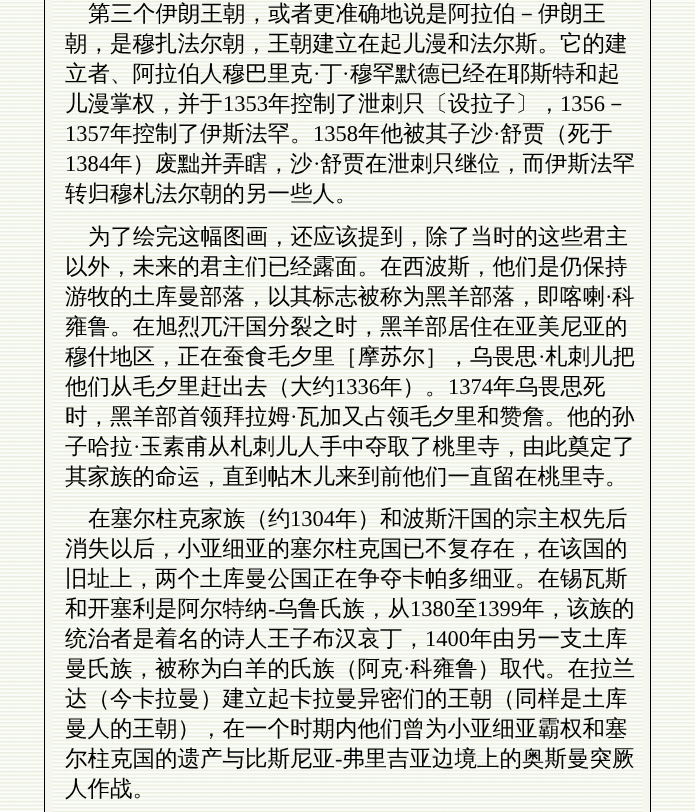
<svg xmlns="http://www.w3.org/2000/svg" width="695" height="812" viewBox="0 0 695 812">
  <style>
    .t1 { font: 500 22.5px WenQuanYi Zen Hei; fill: #000; }
    .t2 { font: 22.5px Liberation Serif; fill: #000; }
  </style>
  <rect width="100%" height="100%" fill="#fff"/>
  <image x="0" y="0" width="695" height="811" href="images/1.png"/>
  <rect x="44" y="0" width="607" height="812" fill="#000"/>
  <rect x="45" y="0" width="605" height="812" fill="#f5f7ee"/>
  <image x="52" y="0" width="591" height="812" href="images/2.png"/>
  <text x="88" y="21" class="t1">第三个伊朗王朝，或者更准确地说是阿拉伯－伊朗王</text>
  <text x="65" y="51" class="t1">朝，是穆扎法尔朝，王朝建立在起儿漫和法尔斯。它的建</text>
  <text x="65" y="81" class="t1">立者、阿拉伯人穆巴里克</text>
  <text x="313" y="81" class="t2">·</text>
  <text x="320" y="81" class="t1">丁</text>
  <text x="342" y="81" class="t2">·</text>
  <text x="350" y="81" class="t1">穆罕默德已经在耶斯特和起</text>
  <text x="65" y="111" class="t1">儿漫掌权，并于</text>
  <text x="223" y="111" class="t2">1353</text>
  <text x="268" y="111" class="t1">年控制了泄刺只〔设拉子〕，</text>
  <text x="560" y="111" class="t2">1356</text>
  <text x="605" y="111" class="t1">－</text>
  <text x="65" y="141" class="t2">1357</text>
  <text x="110" y="141" class="t1">年控制了伊斯法罕。</text>
  <text x="313" y="141" class="t2">1358</text>
  <text x="358" y="141" class="t1">年他被其子沙</text>
  <text x="493" y="141" class="t2">·</text>
  <text x="500" y="141" class="t1">舒贾（死于</text>
  <text x="65" y="171" class="t2">1384</text>
  <text x="110" y="171" class="t1">年）废黜并弄瞎，沙</text>
  <text x="313" y="171" class="t2">·</text>
  <text x="320" y="171" class="t1">舒贾在泄刺只继位，而伊斯法罕</text>
  <text x="65" y="201" class="t1">转归穆札法尔朝的另一些人。</text>
  <text x="88" y="244" class="t1">为了绘完这幅图画，还应该提到，除了当时的这些君主</text>
  <text x="65" y="274" class="t1">以外，未来的君主们已经露面。在西波斯，他们是仍保持</text>
  <text x="65" y="304" class="t1">游牧的土库曼部落，以其标志被称为黑羊部落，即喀喇</text>
  <text x="605" y="304" class="t2">·</text>
  <text x="612" y="304" class="t1">科</text>
  <text x="65" y="334" class="t1">雍鲁。在旭烈兀汗国分裂之时，黑羊部居住在亚美尼亚的</text>
  <text x="65" y="364" class="t1">穆什地区，正在蚕食毛夕里［摩苏尔］，乌畏思</text>
  <text x="538" y="364" class="t2">·</text>
  <text x="545" y="364" class="t1">札刺儿把</text>
  <text x="65" y="394" class="t1">他们从毛夕里赶出去（大约</text>
  <text x="335" y="394" class="t2">1336</text>
  <text x="380" y="394" class="t1">年）。</text>
  <text x="448" y="394" class="t2">1374</text>
  <text x="493" y="394" class="t1">年乌畏思死</text>
  <text x="65" y="424" class="t1">时，黑羊部首领拜拉姆</text>
  <text x="290" y="424" class="t2">·</text>
  <text x="297" y="424" class="t1">瓦加又占领毛夕里和赞詹。他的孙</text>
  <text x="65" y="454" class="t1">子哈拉</text>
  <text x="133" y="454" class="t2">·</text>
  <text x="140" y="454" class="t1">玉素甫从札刺儿人手中夺取了桃里寺，由此奠定了</text>
  <text x="65" y="484" class="t1">其家族的命运，直到帖木儿来到前他们一直留在桃里寺。</text>
  <text x="88" y="526" class="t1">在塞尔柱克家族（约</text>
  <text x="290" y="526" class="t2">1304</text>
  <text x="335" y="526" class="t1">年）和波斯汗国的宗主权先后</text>
  <text x="65" y="556" class="t1">消失以后，小亚细亚的塞尔柱克国已不复存在，在该国的</text>
  <text x="65" y="586" class="t1">旧址上，两个土库曼公国正在争夺卡帕多细亚。在锡瓦斯</text>
  <text x="65" y="616" class="t1">和开塞利是阿尔特纳</text>
  <text x="268" y="616" class="t2">-</text>
  <text x="275" y="616" class="t1">乌鲁氏族，从</text>
  <text x="410" y="616" class="t2">1380</text>
  <text x="455" y="616" class="t1">至</text>
  <text x="477" y="616" class="t2">1399</text>
  <text x="522" y="616" class="t1">年，该族的</text>
  <text x="65" y="646" class="t1">统治者是着名的诗人王子布汉哀丁，</text>
  <text x="425" y="646" class="t2">1400</text>
  <text x="470" y="646" class="t1">年由另一支土库</text>
  <text x="65" y="676" class="t1">曼氏族，被称为白羊的氏族（阿克</text>
  <text x="403" y="676" class="t2">·</text>
  <text x="410" y="676" class="t1">科雍鲁）取代。在拉兰</text>
  <text x="65" y="706" class="t1">达（今卡拉曼）建立起卡拉曼异密们的王朝（同样是土库</text>
  <text x="65" y="736" class="t1">曼人的王朝），在一个时期内他们曾为小亚细亚霸权和塞</text>
  <text x="65" y="766" class="t1">尔柱克国的遗产与比斯尼亚</text>
  <text x="335" y="766" class="t2">-</text>
  <text x="342" y="766" class="t1">弗里吉亚边境上的奥斯曼突厥</text>
  <text x="65" y="796" class="t1">人作战。</text>
</svg>
